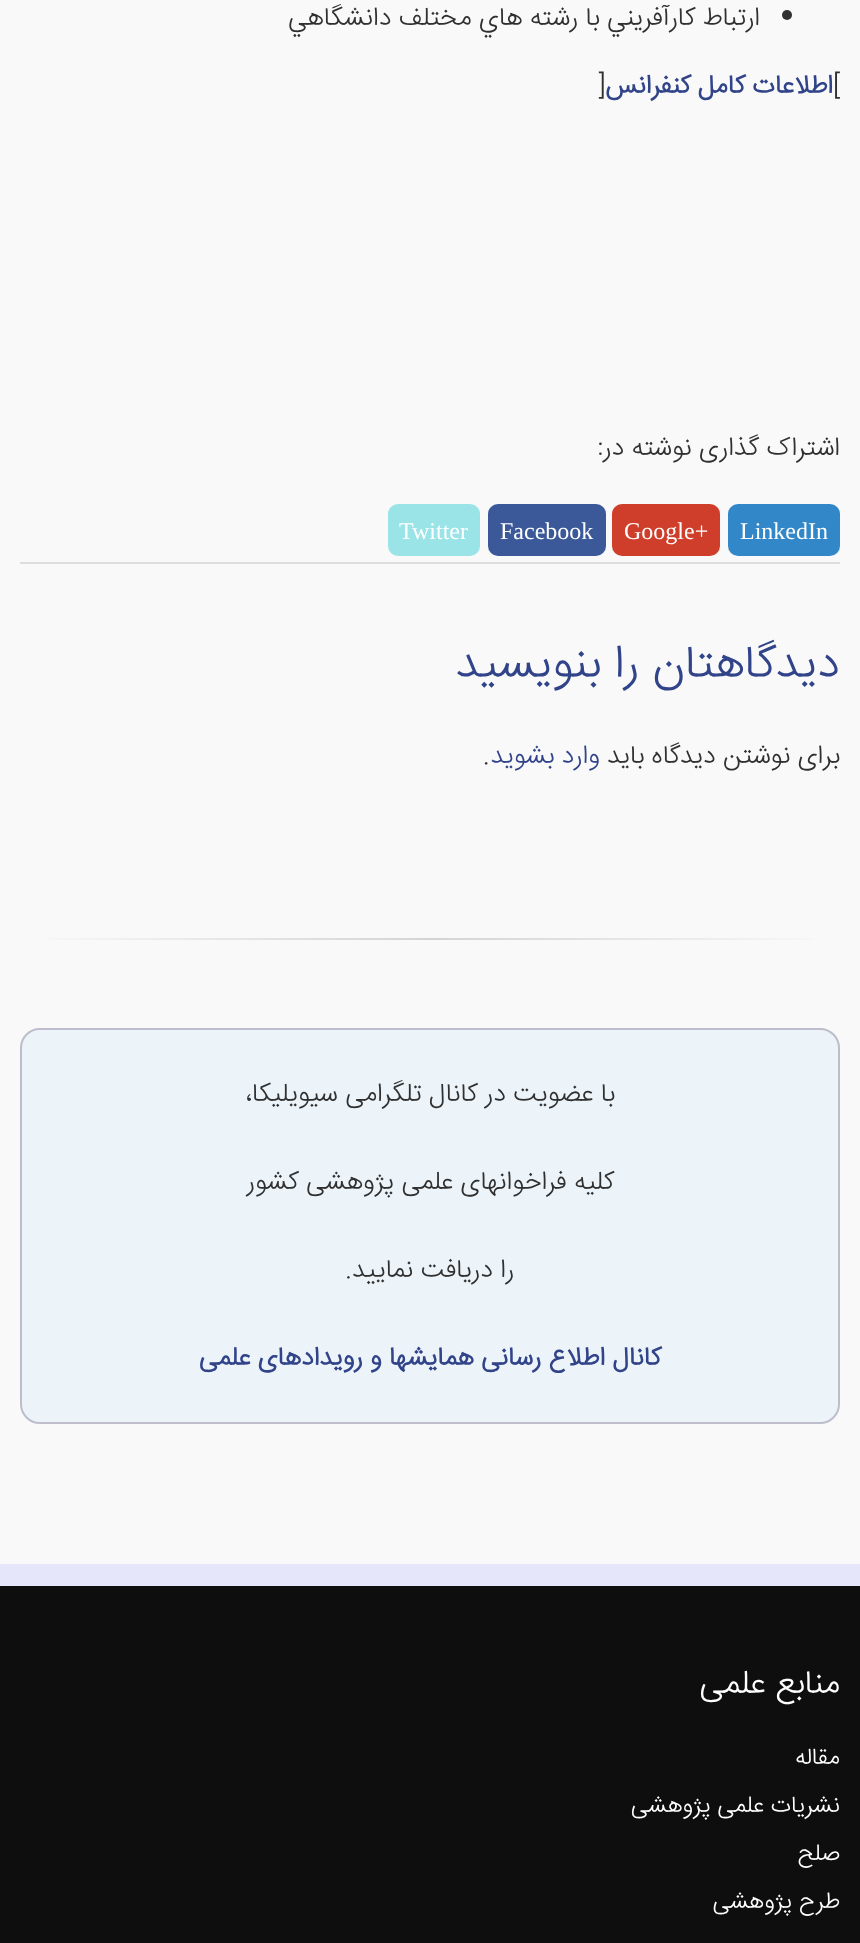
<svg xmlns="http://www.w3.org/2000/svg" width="860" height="1943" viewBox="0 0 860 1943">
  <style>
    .t1 { font: 300 26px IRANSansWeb; direction: rtl; fill: #303030; }
    .t2 { font: 300 26px IRANSansWeb; fill: #303030; }
    .t3 { font: bold 26px IRANSansWeb; direction: rtl; fill: #314489; }
    .t4 { font: 24px Liberation Serif; fill: #fff; }
    .t5 { font: 300 46.75px IRANSansWeb; direction: rtl; fill: #314489; }
    .t6 { font: 300 26px IRANSansWeb; direction: rtl; fill: #314489; }
    .t7 { font: 300 33.5px IRANSansWeb; direction: rtl; fill: #fff; }
    .t8 { font: 300 23.5px IRANSansWeb; direction: rtl; fill: #fff; }
  </style>
  <defs>
    <linearGradient id="g1" gradientUnits="userSpaceOnUse" x1="840" y1="939" x2="20" y2="939"><stop offset="0" stop-color="#f9f9f9"/><stop offset="0.5" stop-color="#d4d4d4"/><stop offset="1" stop-color="#f9f9f9"/></linearGradient>
  </defs>
  <rect width="100%" height="100%" fill="#f9f9f9"/>
  <circle cx="787" cy="15" r="5" fill="#303030"/>
  <text x="760" y="25" class="t1">ارتباط كارآفريني با رشته هاي مختلف دانشگاهي</text>
  <text x="833" y="93" class="t2">[</text>
  <text x="833" y="93" class="t3">اطلاعات کامل کنفرانس</text>
  <text x="599" y="93" class="t2">]</text>
  <text x="840" y="455" class="t1">اشتراک گذاری نوشته در:</text>
  <rect x="728" y="504" width="112" height="52" rx="10" fill="#3287c8"/>
  <text x="740" y="539" class="t4">LinkedIn</text>
  <rect x="612" y="504" width="108" height="52" rx="10" fill="#cf3e2b"/>
  <text x="624" y="539" class="t4">Google+</text>
  <rect x="488" y="504" width="118" height="52" rx="10" fill="#3b5998"/>
  <text x="500" y="539" class="t4">Facebook</text>
  <rect x="388" y="504" width="92" height="52" rx="10" fill="#9ae4e8"/>
  <text x="399" y="539" class="t4">Twitter</text>
  <rect x="20" y="562" width="820" height="2" fill="#ddd"/>
  <text x="840" y="677" class="t5">دیدگاهتان را بنویسید</text>
  <text x="840" y="763" class="t1">برای نوشتن دیدگاه باید</text>
  <text x="600" y="763" class="t6">وارد بشوید</text>
  <text x="483" y="763" class="t2">.</text>
  <rect x="48" y="938" width="764" height="2" fill="url(#g1)"/>
  <rect x="21" y="1029" width="818" height="394" rx="19" fill="#edf4f9" stroke="#bdbdcc" stroke-width="2"/>
  <text x="615" y="1101" class="t1">با عضویت در کانال تلگرامی سیویلیکا،</text>
  <text x="614" y="1189" class="t1">کلیه فراخوانهای علمی پژوهشی کشور</text>
  <text x="514" y="1277" class="t1">را دریافت نمایید.</text>
  <text x="661" y="1365" class="t3">کانال اطلاع رسانی همایشها و رویدادهای علمی</text>
  <rect x="0" y="1564" width="860" height="22" fill="#e5e6f9"/>
  <rect x="0" y="1586" width="860" height="357" fill="#0e0e0e"/>
  <text x="840" y="1693" class="t7">منابع علمی</text>
  <text x="840" y="1764" class="t8">مقاله</text>
  <text x="840" y="1812" class="t8">نشریات علمی پژوهشی</text>
  <text x="840" y="1860" class="t8">صلح</text>
  <text x="840" y="1908" class="t8">طرح پژوهشی</text>
</svg>
